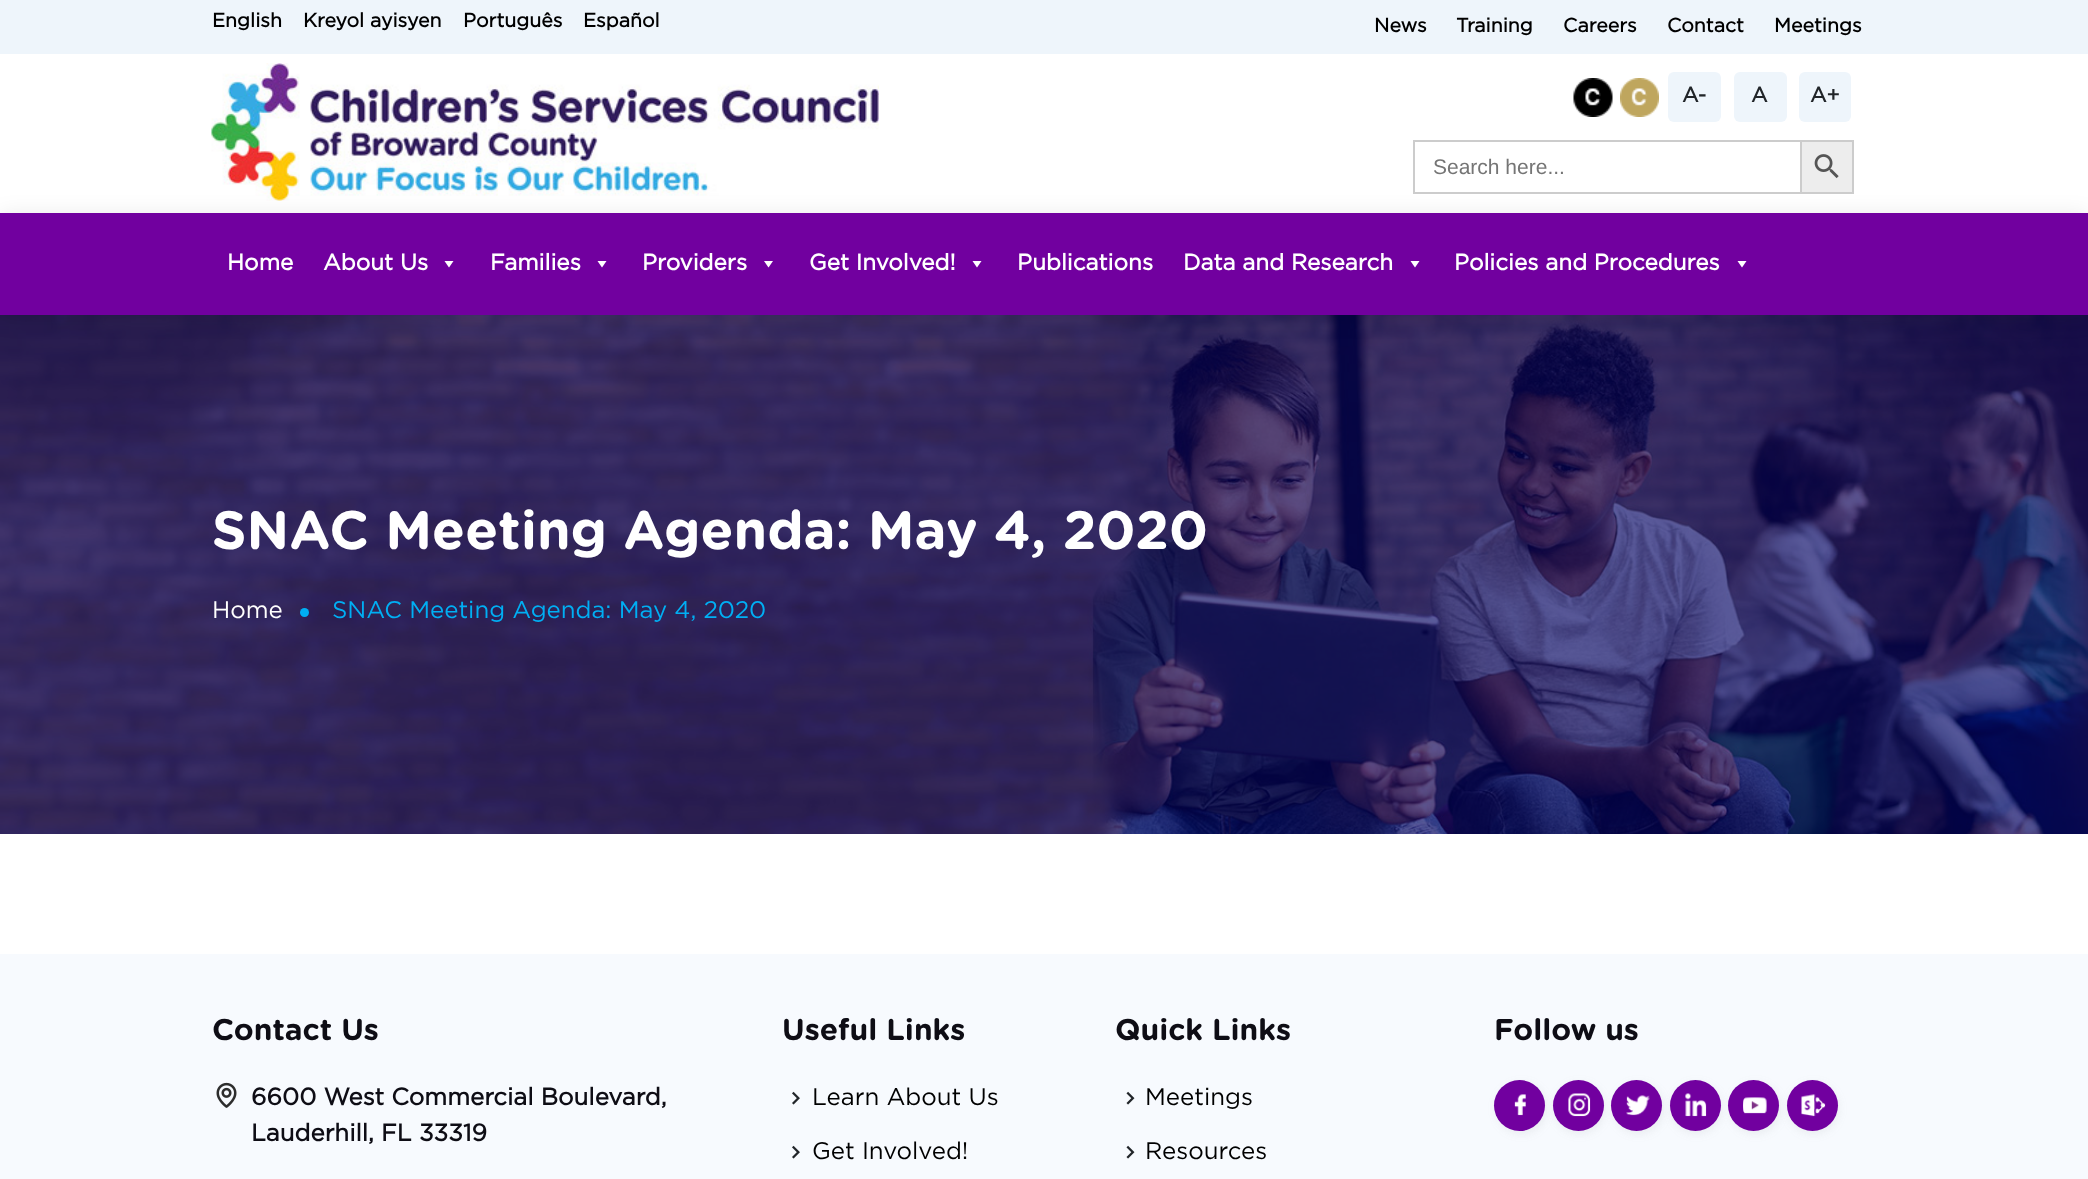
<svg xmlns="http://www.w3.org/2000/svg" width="2088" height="1179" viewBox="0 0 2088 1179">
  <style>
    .t1 { font: bold 19.5px Gotham; fill: #000; }
    .t2 { font: bold 21px Gotham; fill: #212529; }
    .t3 { font: 21px Liberation Sans; fill: #757575; }
    .t4 { font: bold 22.5px Gotham; fill: #fff; }
    .t5 { font: bold 54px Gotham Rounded; fill: #fff; }
    .t6 { font: 24px Gotham; fill: #fff; }
    .t7 { font: 24px Gotham; fill: #00aff4; }
    .t8 { font: bold 30px Gotham Rounded; fill: #0e0d15; }
    .t9 { font: bold 24px Gotham; fill: #0e0d15; }
    .t10 { font: 24px Gotham; fill: #000; }
  </style>
  <rect width="100%" height="100%" fill="#fff"/>
  <rect x="0" y="0" width="2088" height="54" fill="#eef5fb"/>
  <text x="212" y="27" class="t1">English</text>
  <text x="303" y="27" class="t1">Kreyol ayisyen</text>
  <text x="463" y="27" class="t1">Português</text>
  <text x="583" y="27" class="t1">Español</text>
  <text x="1374" y="32" class="t1">News</text>
  <text x="1456" y="32" class="t1">Training</text>
  <text x="1563" y="32" class="t1">Careers</text>
  <text x="1667" y="32" class="t1">Contact</text>
  <text x="1774" y="32" class="t1">Meetings</text>
  <image x="211" y="63" width="668" height="138" href="images/1.png"/>
  <image x="1573" y="78" width="40" height="39" href="images/2.png"/>
  <image x="1620" y="78" width="39" height="39" href="images/3.png"/>
  <rect x="1668" y="72" width="53" height="50" rx="6" fill="#eef5fb"/>
  <text x="1682" y="102" class="t2">A-</text>
  <rect x="1734" y="72" width="53" height="50" rx="6" fill="#eef5fb"/>
  <text x="1751" y="102" class="t2">A</text>
  <rect x="1799" y="72" width="52" height="50" rx="6" fill="#eef5fb"/>
  <text x="1810" y="102" class="t2">A+</text>
  <rect x="1413" y="140" width="387" height="2" fill="#ccc"/>
  <rect x="1413" y="192" width="387" height="2" fill="#ccc"/>
  <rect x="1413" y="140" width="2" height="54" fill="#ccc"/>
  <text x="1433" y="174" class="t3">Search here...</text>
  <rect x="1801" y="141" width="52" height="52" fill="#ededed" stroke="#ccc" stroke-width="2"/>
  <image x="1814" y="154" width="25" height="25" href="images/4.png"/>
  <image x="0" y="315" width="2088" height="519" href="images/5.png"/>
  <rect x="0" y="216" width="2088" height="102" fill="#0000001a" filter="blur(11px)"/>
  <rect x="0" y="213" width="2088" height="102" fill="#71009f"/>
  <text x="227" y="270" class="t4">Home</text>
  <text x="323" y="270" class="t4">About Us</text>
  <path d="M453.5 261L449 267.5L444.5 261Z" fill="#fff"/>
  <text x="490" y="270" class="t4">Families</text>
  <path d="M606.5 261L602 267.5L597.5 261Z" fill="#fff"/>
  <text x="642" y="270" class="t4">Providers</text>
  <path d="M773 261L768.5 267.5L764 261Z" fill="#fff"/>
  <text x="809" y="270" class="t4">Get Involved!</text>
  <path d="M981.5 261L977 267.5L972.5 261Z" fill="#fff"/>
  <text x="1017" y="270" class="t4">Publications</text>
  <text x="1183" y="270" class="t4">Data and Research</text>
  <path d="M1419.5 261L1415 267.5L1410.5 261Z" fill="#fff"/>
  <text x="1454" y="270" class="t4">Policies and Procedures</text>
  <path d="M1746.5 261L1742 267.5L1737.5 261Z" fill="#fff"/>
  <text x="212" y="549" class="t5">SNAC Meeting Agenda: May 4, 2020</text>
  <text x="212" y="618" class="t6">Home</text>
  <circle cx="304.5" cy="612.5" r="4.5" fill="#00aff4"/>
  <text x="332" y="618" class="t7">SNAC Meeting Agenda: May 4, 2020</text>
  <rect x="0" y="954" width="2088" height="225" fill="#f7fafe"/>
  <text x="212" y="1040" class="t8">Contact Us</text>
  <image x="216" y="1082" width="21" height="26" href="images/6.png"/>
  <text x="251" y="1105" class="t9">6600 West Commercial Boulevard,</text>
  <text x="251" y="1141" class="t9">Lauderhill, FL 33319</text>
  <text x="782" y="1040" class="t8">Useful Links</text>
  <image x="792" y="1091" width="8" height="14" href="images/7.png"/>
  <text x="812" y="1105" class="t10">Learn About Us</text>
  <image x="792" y="1145" width="8" height="14" href="images/7.png"/>
  <text x="812" y="1159" class="t10">Get Involved!</text>
  <text x="1115" y="1040" class="t8">Quick Links</text>
  <image x="1126" y="1091" width="9" height="14" href="images/8.png"/>
  <text x="1145" y="1105" class="t10">Meetings</text>
  <image x="1126" y="1145" width="9" height="14" href="images/8.png"/>
  <text x="1145" y="1159" class="t10">Resources</text>
  <text x="1494" y="1040" class="t8">Follow us</text>
  <rect x="1496" y="1083" width="51" height="51" rx="25.5" fill="#8383831c" filter="blur(4.5px)"/>
  <circle cx="1519.5" cy="1105.5" r="25.5" fill="#71009f"/>
  <image x="1514" y="1094" width="12" height="22" href="images/9.png"/>
  <rect x="1554" y="1083" width="51" height="51" rx="25.5" fill="#8383831c" filter="blur(4.5px)"/>
  <circle cx="1578.5" cy="1105.5" r="25.5" fill="#71009f"/>
  <image x="1568" y="1093" width="23" height="24" href="images/10.png"/>
  <rect x="1613" y="1083" width="51" height="51" rx="25.5" fill="#8383831c" filter="blur(4.5px)"/>
  <circle cx="1636.5" cy="1105.5" r="25.5" fill="#71009f"/>
  <image x="1626" y="1095" width="24" height="21" href="images/11.png"/>
  <rect x="1671" y="1083" width="51" height="51" rx="25.5" fill="#8383831c" filter="blur(4.5px)"/>
  <circle cx="1695.5" cy="1105.5" r="25.5" fill="#71009f"/>
  <image x="1685" y="1093" width="22" height="24" href="images/12.png"/>
  <rect x="1730" y="1083" width="51" height="51" rx="25.5" fill="#8383831c" filter="blur(4.5px)"/>
  <circle cx="1753.5" cy="1105.5" r="25.5" fill="#71009f"/>
  <image x="1743" y="1097" width="24" height="17" href="images/13.png"/>
  <rect x="1788" y="1083" width="51" height="51" rx="25.5" fill="#8383831c" filter="blur(4.5px)"/>
  <circle cx="1812.5" cy="1105.5" r="25.5" fill="#71009f"/>
  <image x="1801" y="1094" width="25" height="23" href="images/14.png"/>
</svg>
